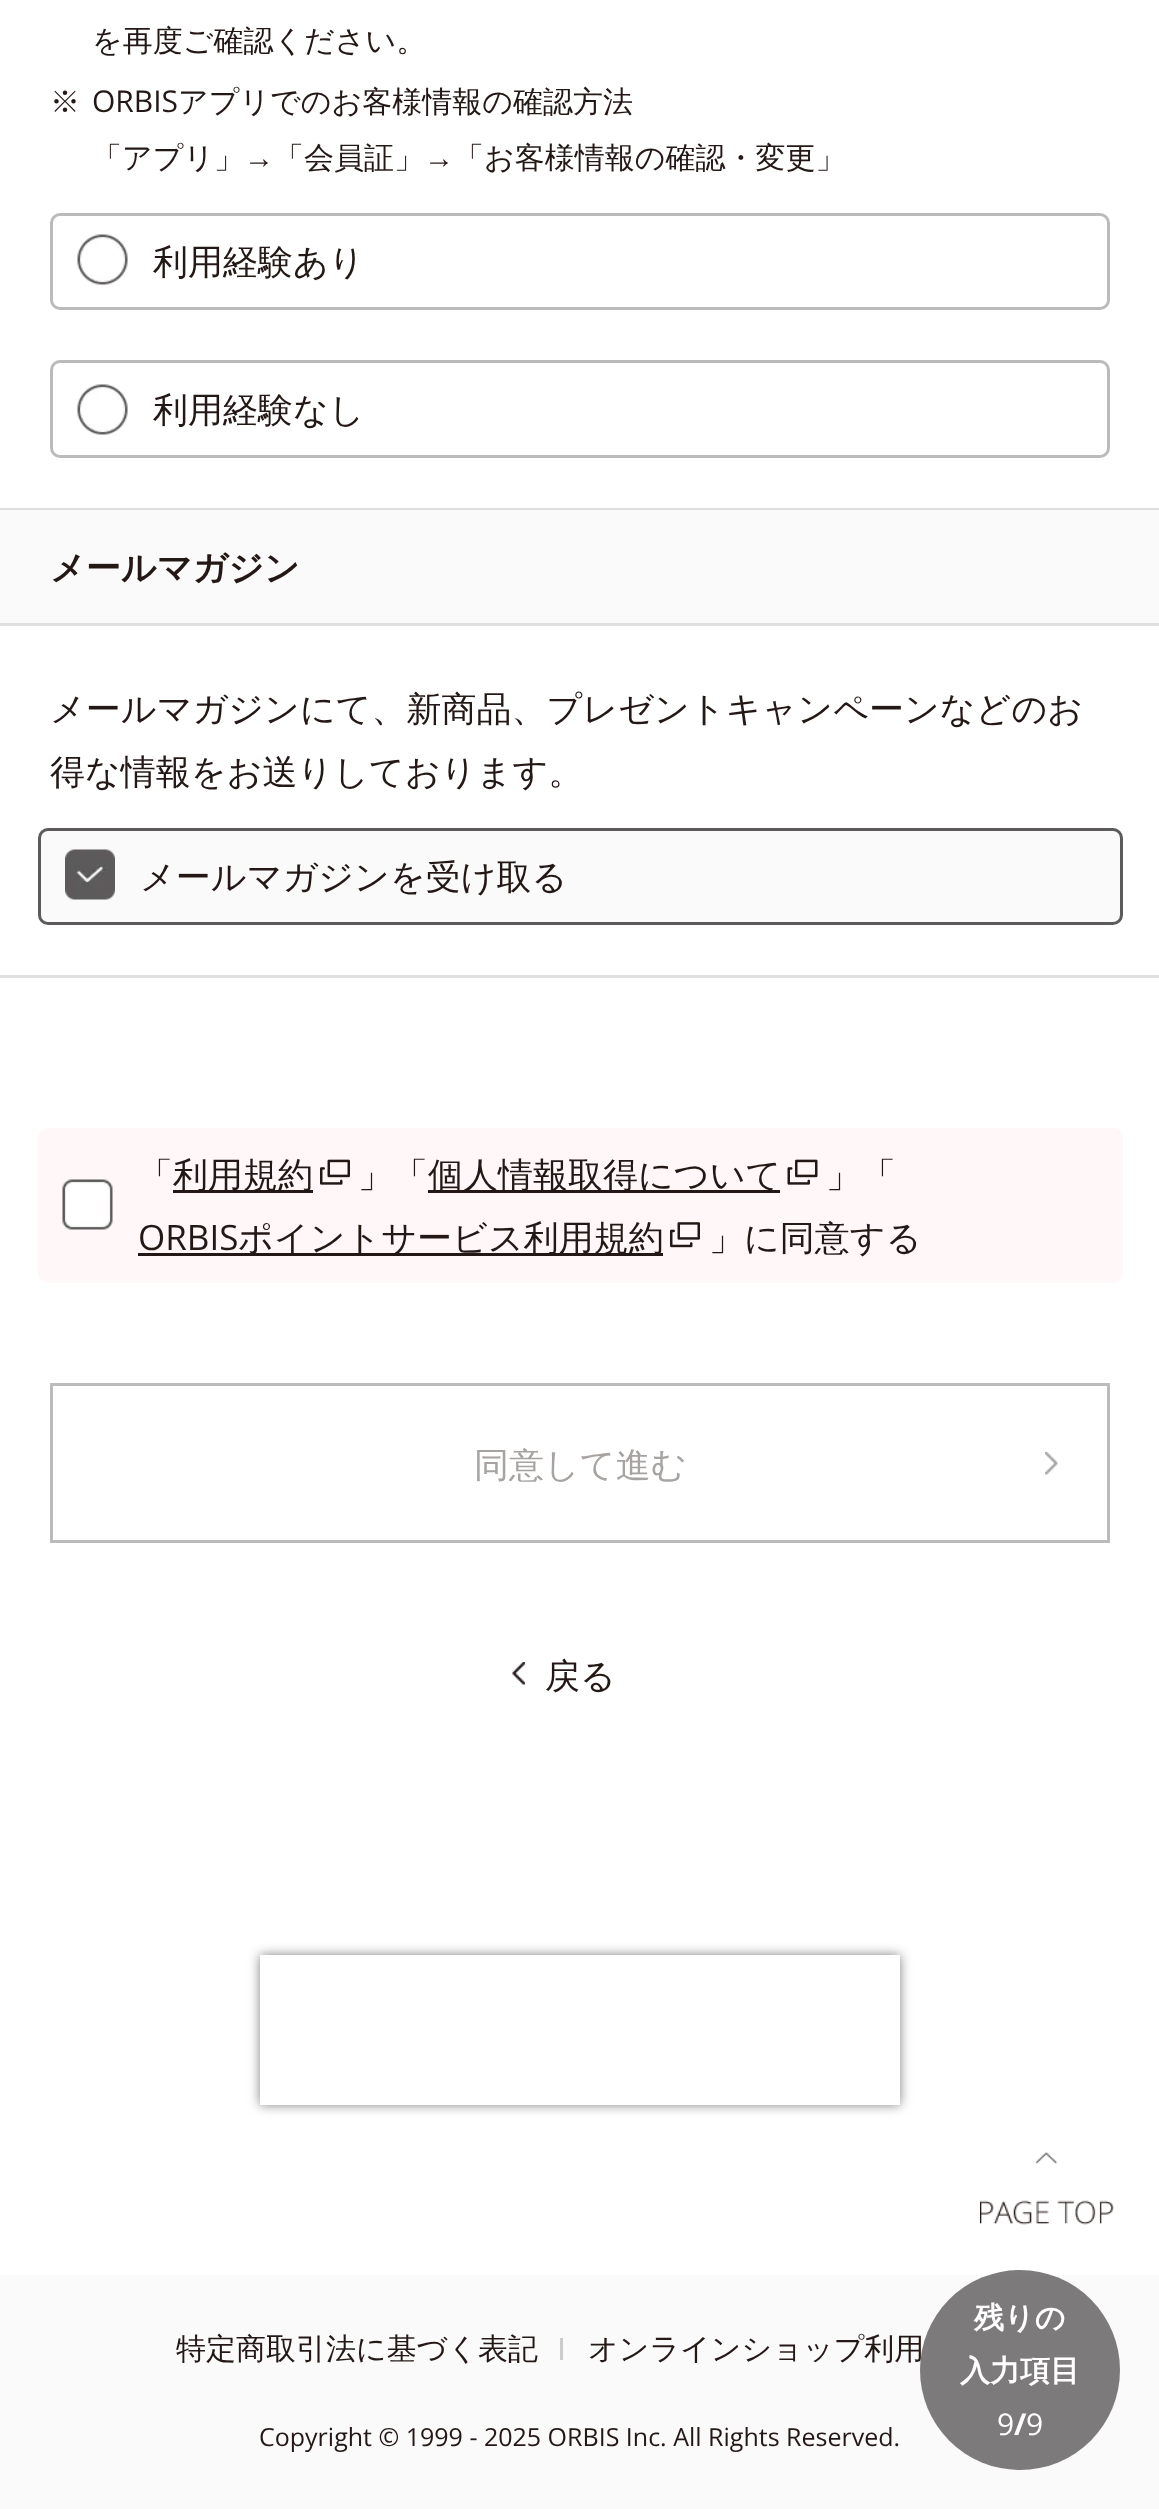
<svg xmlns="http://www.w3.org/2000/svg" width="1159" height="2509" viewBox="0 0 1159 2509">
  <style>
    .t1 { font: 500 30px WenQuanYi Zen Hei; fill: #231815; }
    .t2 { font: 30px Open Sans; fill: #231815; }
    .t3 { font: 30px Liberation Sans; fill: #231815; }
    .t4 { font: 500 35px WenQuanYi Zen Hei; fill: #231815; }
    .t5 { font: bold 35px WenQuanYi Zen Hei; fill: #231815; }
    .t6 { font: 35px Open Sans; fill: #231815; }
    .t7 { font: 500 35px WenQuanYi Zen Hei; fill: #a7a3a1; }
    .t8 { font: bold 30px WenQuanYi Zen Hei; fill: #fff; }
    .t9 { font: 30px Open Sans; fill: #fff; }
    .t10 { font: bold 30px Open Sans; fill: #fff; }
    .t11 { font: 25px Open Sans; fill: #231815; }
  </style>
  <defs>
    <clipPath id="clip1"><path d="M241 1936H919V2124H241ZM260 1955H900V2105H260Z" clip-rule="evenodd"/></clipPath>
  </defs>
  <rect width="100%" height="100%" fill="#fff"/>
  <rect x="0" y="508" width="1159" height="2" fill="#e0e0e0"/>
  <text x="92" y="51" class="t1">を再度ご確認ください。</text>
  <text x="50" y="112" class="t1">※</text>
  <text x="92" y="112" class="t2">ORBIS</text>
  <text x="178" y="112" class="t1">アプリでのお客様情報の確認方法</text>
  <text x="92" y="168" class="t1">「アプリ」</text>
  <text x="244" y="168" class="t3">→</text>
  <text x="274" y="168" class="t1">「会員証」</text>
  <text x="424" y="168" class="t3">→</text>
  <text x="454" y="168" class="t1">「お客様情報の確認・変更」</text>
  <rect x="51.5" y="214.5" width="1057" height="94" rx="8.5" fill="none" stroke="#bbb" stroke-width="3"/>
  <image x="77" y="234" width="51" height="51" href="images/1.png"/>
  <text x="153" y="274" class="t4">利用経験あり</text>
  <rect x="51.5" y="361.5" width="1057" height="95" rx="8.5" fill="none" stroke="#bbb" stroke-width="3"/>
  <image x="77" y="384" width="51" height="51" href="images/1.png"/>
  <text x="153" y="422" class="t4">利用経験なし</text>
  <rect x="0" y="510" width="1159" height="113" fill="#fafafa"/>
  <rect x="0" y="623" width="1159" height="3" fill="#e0e0e0"/>
  <text x="50" y="580" class="t5">メールマガジン</text>
  <rect x="0" y="975" width="1159" height="3" fill="#e0e0e0"/>
  <text x="50" y="721" class="t4">メールマガジンにて、新商品、プレゼントキャンペーンなどのお</text>
  <text x="50" y="784" class="t4">得な情報をお送りしております。</text>
  <rect x="39.5" y="829.5" width="1082" height="94" rx="8.5" fill="#fafafa" stroke="#5c5a5a" stroke-width="3"/>
  <image x="65" y="849" width="50" height="51" href="images/2.png"/>
  <text x="140" y="889" class="t4">メールマガジンを受け取る</text>
  <rect x="38" y="1128" width="1085" height="155" rx="10" fill="#fff7f8"/>
  <text x="138" y="1187" class="t4">「</text>
  <rect x="173" y="1190" width="140" height="3" fill="#231815"/>
  <text x="173" y="1187" class="t4">利用規約</text>
  <image x="320" y="1159" width="30" height="26" href="images/3.png"/>
  <text x="358" y="1187" class="t4">」「</text>
  <rect x="428" y="1190" width="352" height="3" fill="#231815"/>
  <text x="428" y="1187" class="t4">個人情報取得について</text>
  <image x="787" y="1159" width="31" height="26" href="images/4.png"/>
  <text x="826" y="1187" class="t4">」「</text>
  <image x="62" y="1179" width="51" height="51" href="images/5.png"/>
  <text x="138" y="1250" class="t6">ORBIS</text>
  <rect x="138" y="1253" width="525" height="3" fill="#231815"/>
  <text x="238" y="1250" class="t4">ポイントサービス利用規約</text>
  <image x="670" y="1222" width="30" height="26" href="images/6.png"/>
  <text x="709" y="1250" class="t4">」に同意する</text>
  <rect x="51.5" y="1384.5" width="1057" height="157" fill="none" stroke="#bbb" stroke-width="3"/>
  <image x="1045" y="1452" width="13" height="23" href="images/7.png"/>
  <text x="474" y="1477" class="t7">同意して進む</text>
  <image x="512" y="1662" width="13" height="23" href="images/8.png"/>
  <text x="545" y="1688" class="t4">戻る</text>
  <g clip-path="url(#clip1)">
    <rect x="260" y="1955" width="640" height="150" fill="#808080" filter="blur(6px)"/>
  </g>
  <rect x="0" y="2275" width="1159" height="234" fill="#fafafa"/>
  <text x="588" y="2359" class="t1">オンラインショップ利用</text>
  <circle cx="1020" cy="2370" r="100" fill="#5c5a5acc"/>
  <text x="974" y="2328" class="t8">残りの</text>
  <text x="960" y="2381" class="t8">入力項目</text>
  <text x="997" y="2435" class="t9">9</text>
  <text x="1014" y="2435" class="t10">/</text>
  <text x="1026" y="2435" class="t9">9</text>
  <image x="980" y="2152" width="134" height="73" href="images/9.png"/>
  <text x="176" y="2359" class="t1">特定商取引法に基づく表記</text>
  <rect x="560" y="2338" width="3" height="22" fill="#ccc"/>
  <text x="259" y="2446" class="t11">Copyright © 1999 - 2025 ORBIS Inc. All Rights Reserved.</text>
</svg>
